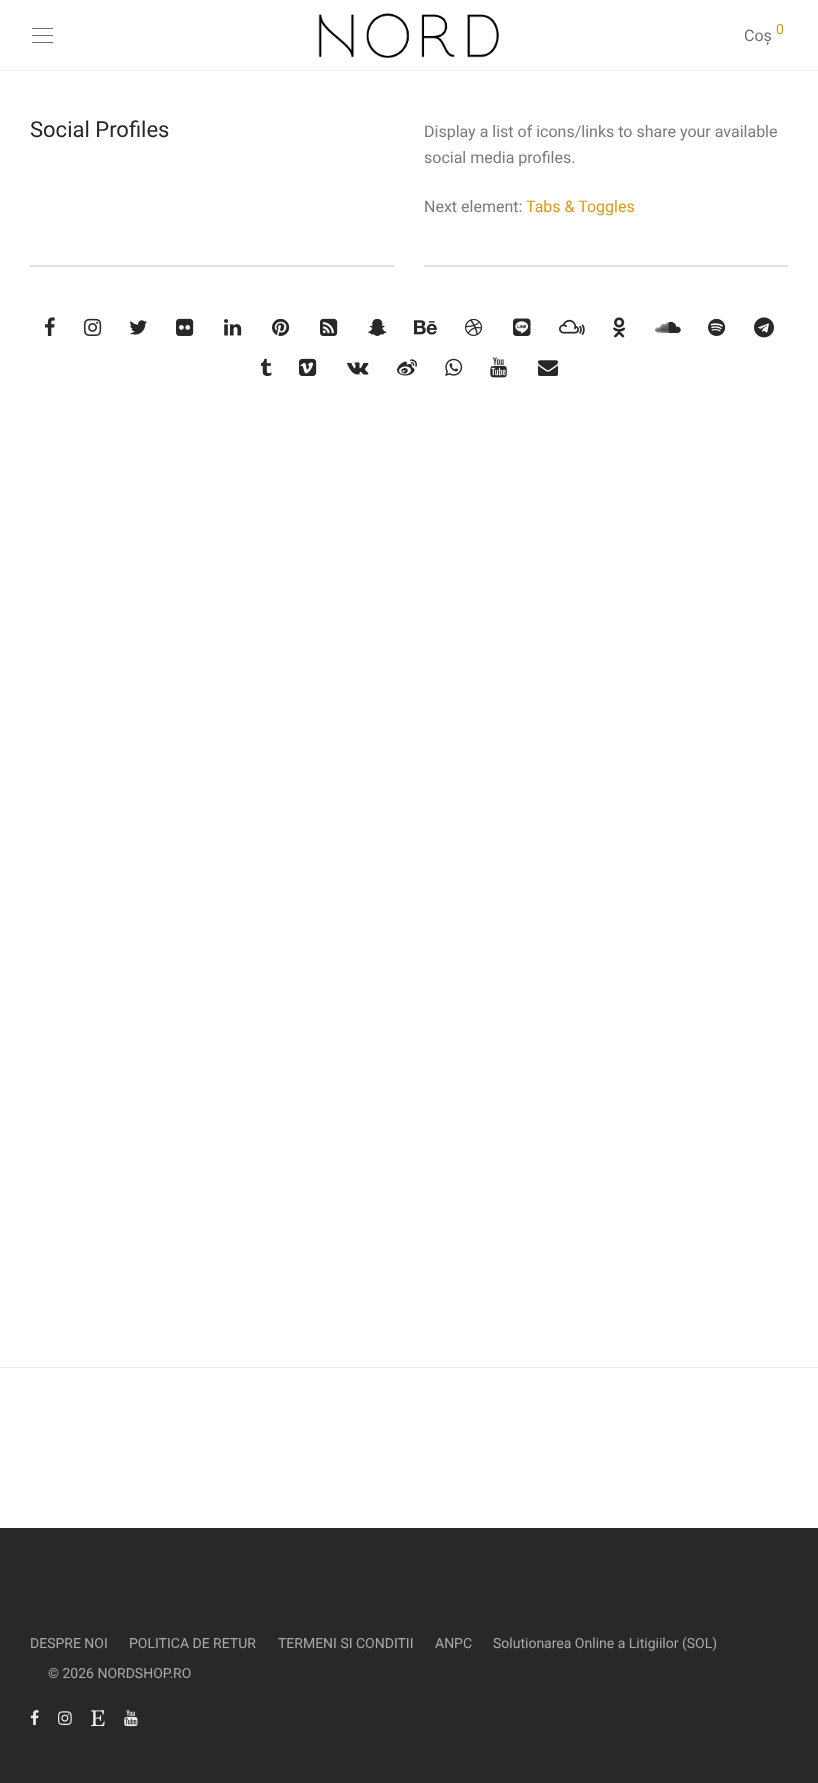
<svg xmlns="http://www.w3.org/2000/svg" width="818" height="1783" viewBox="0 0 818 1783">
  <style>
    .t1 { font: 16px Roboto; fill: #707070; }
    .t2 { font: 14px Roboto; fill: #dc9814; }
    .t3 { font: 22px Roboto; fill: #282828; }
    .t4 { font: 16px Roboto; fill: #7a7a7a; }
    .t5 { font: 16px Roboto; fill: #dc9814; }
    .t6 { font: 14px Roboto; fill: #aaa; }
  </style>
  <rect width="100%" height="100%" fill="#fff"/>
  <rect x="0" y="70" width="818" height="1" fill="#eee"/>
  <image x="318" y="13" width="181" height="45" href="images/1.png"/>
  <rect x="32" y="28" width="21" height="1" fill="#707070"/>
  <rect x="32" y="35" width="21" height="1" fill="#707070"/>
  <rect x="32" y="42" width="21" height="1" fill="#707070"/>
  <text x="744" y="41" class="t1">Coș</text>
  <text x="776" y="34" class="t2">0</text>
  <text x="30" y="137" class="t3">Social Profiles</text>
  <text x="424" y="137" class="t4">Display a list of icons/links to share your available</text>
  <text x="424" y="163" class="t4">social media profiles.</text>
  <text x="424" y="212" class="t4">Next element:</text>
  <text x="526" y="212" class="t5">Tabs &amp; Toggles</text>
  <rect x="30" y="265" width="364" height="2" fill="#e0e0e0"/>
  <rect x="424" y="265" width="364" height="2" fill="#e0e0e0"/>
  <image x="45" y="317" width="10" height="19" href="images/2.png"/>
  <image x="84" y="318" width="18" height="18" href="images/3.png"/>
  <image x="129" y="320" width="18" height="15" href="images/4.png"/>
  <image x="176" y="318" width="18" height="18" href="images/5.png"/>
  <image x="224" y="319" width="18" height="17" href="images/6.png"/>
  <image x="272" y="318" width="18" height="18" href="images/7.png"/>
  <image x="320" y="318" width="18" height="18" href="images/8.png"/>
  <image x="368" y="318" width="19" height="18" href="images/9.png"/>
  <image x="414" y="320" width="23" height="15" href="images/10.png"/>
  <image x="465" y="318" width="18" height="18" href="images/11.png"/>
  <image x="513" y="318" width="18" height="18" href="images/12.png"/>
  <image x="559" y="319" width="26" height="16" href="images/13.png"/>
  <image x="613" y="317" width="13" height="21" href="images/14.png"/>
  <image x="655" y="321" width="26" height="12" href="images/15.png"/>
  <image x="708" y="318" width="18" height="18" href="images/16.png"/>
  <image x="754" y="317" width="20" height="21" href="images/17.png"/>
  <image x="260" y="358" width="12" height="18" href="images/18.png"/>
  <image x="299" y="358" width="18" height="18" href="images/19.png"/>
  <image x="347" y="362" width="22" height="13" href="images/20.png"/>
  <image x="397" y="359" width="20" height="17" href="images/21.png"/>
  <image x="445" y="358" width="18" height="18" href="images/22.png"/>
  <image x="490" y="357" width="17" height="21" href="images/23.png"/>
  <image x="538" y="360" width="20" height="16" href="images/24.png"/>
  <rect x="0" y="1367" width="818" height="1" fill="#eee"/>
  <rect x="0" y="1528" width="818" height="255" fill="#282828"/>
  <text x="30" y="1648" class="t6">DESPRE NOI</text>
  <text x="129" y="1648" class="t6">POLITICA DE RETUR</text>
  <text x="278" y="1648" class="t6">TERMENI SI CONDITII</text>
  <text x="435" y="1648" class="t6">ANPC</text>
  <text x="493" y="1648" class="t6">Solutionarea Online a Litigiilor (SOL)</text>
  <text x="48" y="1678" class="t6">© 2026 NORDSHOP.RO</text>
  <image x="30" y="1710" width="9" height="15" href="images/25.png"/>
  <image x="58" y="1711" width="14" height="14" href="images/26.png"/>
  <image x="91" y="1710" width="14" height="17" href="images/27.png"/>
  <image x="124" y="1710" width="14" height="17" href="images/28.png"/>
</svg>
